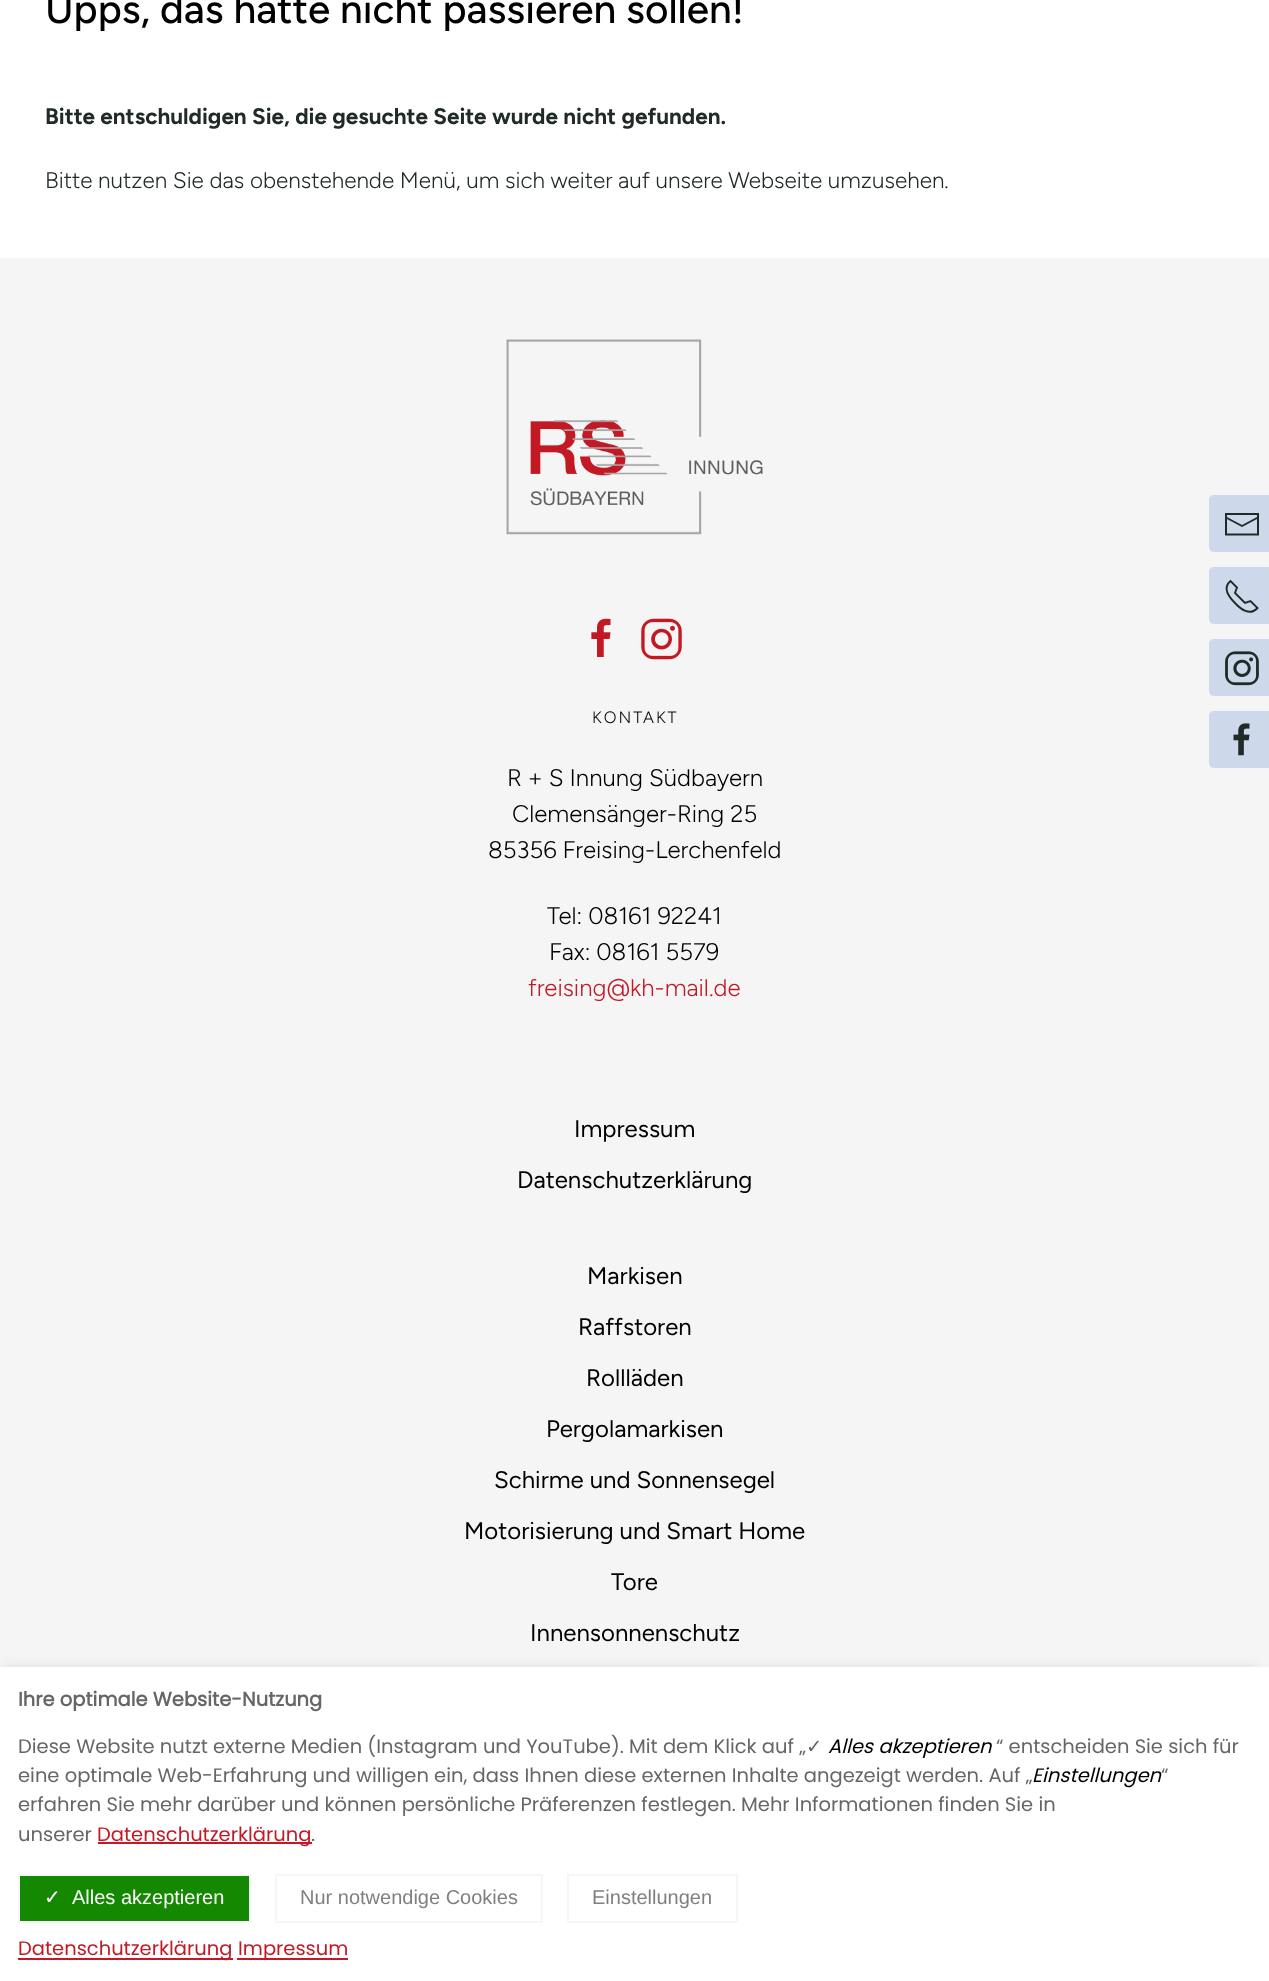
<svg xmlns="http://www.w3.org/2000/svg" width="1269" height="1981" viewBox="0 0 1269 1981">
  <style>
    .t1 { font: 300 40.5px Figtree; fill: #000; }
    .t2 { font: 300 22.5px 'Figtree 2'; fill: #202a26; }
    .t3 { font: 300 22.5px 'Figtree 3'; fill: #202a26; }
    .t4 { font: 300 16.5px 'Figtree 3'; letter-spacing: 2px; fill: #000; }
    .t5 { font: 300 24px 'Figtree 3'; fill: #000; }
    .t6 { font: 300 24px 'Figtree 3'; fill: #c31925; }
    .t7 { font: 300 24px 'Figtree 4'; fill: #000; }
    .t8 { font: bold 19.5px Poppins; fill: #666; }
    .t9 { font: 19.5px Poppins; fill: #666; }
    .t10 { font: 19.5px DejaVu Sans; fill: #666; }
    .t11 { font: italic 19.5px Poppins; fill: #000; }
    .t12 { font: 19.5px Poppins; fill: #c31925; }
    .t13 { font: 20px DejaVu Sans; fill: #fff; }
    .t14 { font: 20px Liberation Sans; fill: #fff; }
    .t15 { font: 20px Liberation Sans; fill: #817f7d; }
  </style>
  <rect width="100%" height="100%" fill="#fff"/>
  <text x="45" y="23" class="t1">Upps, das hätte nicht passieren sollen!</text>
  <text x="45" y="124" class="t2">Bitte entschuldigen Sie, die gesuchte Seite wurde nicht gefunden.</text>
  <text x="45" y="188" class="t3">Bitte nutzen Sie das obenstehende Menü, um sich weiter auf unsere Webseite umzusehen.</text>
  <rect x="0" y="258" width="1269" height="1409" fill="#f5f5f5"/>
  <path d="M1214 495H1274V552H1214C1211 552 1209 550 1209 547V500C1209 497 1211 495 1214 495Z" fill="#ced8eb"/>
  <path d="M1226 517.5L1242 526L1258 517.5" fill="none" stroke="#202a26" stroke-width="1.9"/>
  <path d="M1225 513V535.5H1259V513ZM1257 533.5H1227V515H1257Z" fill="#202a26"/>
  <path d="M1214 567H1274V624H1214C1211 624 1209 622 1209 619V572C1209 569 1211 567 1214 567Z" fill="#ced8eb"/>
  <path d="M1235 603C1240.5 609 1250 616.5 1257.5 608L1250.5 601L1245 603L1235 593L1237 587.5L1230.5 581C1222 588 1229 597 1235 603" fill="none" stroke="#202a26" stroke-width="1.9"/>
  <path d="M1214 639H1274V696H1214C1211 696 1209 694 1209 691V644C1209 641 1211 639 1214 639Z" fill="#ced8eb"/>
  <image x="1225" y="651" width="34" height="35" href="images/1.png"/>
  <path d="M1214 711H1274V768H1214C1211 768 1209 766 1209 763V716C1209 713 1211 711 1214 711Z" fill="#ced8eb"/>
  <image x="1233" y="723" width="17" height="33" href="images/2.png"/>
  <image x="506" y="339" width="257" height="196" href="images/3.png"/>
  <image x="591" y="618" width="20" height="39" href="images/4.png"/>
  <image x="641" y="618" width="41" height="42" href="images/5.png"/>
  <text x="592" y="723" class="t4">KONTAKT</text>
  <text x="507" y="786" class="t5">R + S Innung Südbayern</text>
  <text x="512" y="822" class="t5">Clemensänger-Ring 25</text>
  <text x="488" y="858" class="t5">85356 Freising-Lerchenfeld</text>
  <text x="547" y="924" class="t5">Tel: 08161 92241</text>
  <text x="549" y="960" class="t5">Fax: 08161 5579</text>
  <text x="528" y="996" class="t6">freising@kh-mail.de</text>
  <text x="574" y="1137" class="t7">Impressum</text>
  <text x="517" y="1188" class="t7">Datenschutzerklärung</text>
  <text x="587" y="1284" class="t7">Markisen</text>
  <text x="578" y="1335" class="t7">Raffstoren</text>
  <text x="586" y="1386" class="t7">Rollläden</text>
  <text x="546" y="1437" class="t7">Pergolamarkisen</text>
  <text x="494" y="1488" class="t7">Schirme und Sonnensegel</text>
  <text x="464" y="1539" class="t7">Motorisierung und Smart Home</text>
  <text x="611" y="1590" class="t7">Tore</text>
  <text x="530" y="1641" class="t7">Innensonnenschutz</text>
  <rect x="3" y="1670" width="1254" height="300" fill="#00000026" filter="blur(7.5px)"/>
  <rect x="0" y="1667" width="1268" height="314" fill="#fff"/>
  <text x="18" y="1706" class="t8">Ihre optimale Website-Nutzung</text>
  <text x="18" y="1753" class="t9">Diese Website nutzt externe Medien (Instagram und YouTube). Mit dem Klick auf „</text>
  <text x="806" y="1753" class="t10">✓</text>
  <text x="828" y="1753" class="t11">Alles akzeptieren</text>
  <text x="996" y="1753" class="t9">“ entscheiden Sie sich für</text>
  <text x="18" y="1782" class="t9">eine optimale Web-Erfahrung und willigen ein, dass Ihnen diese externen Inhalte angezeigt werden. Auf „</text>
  <text x="1032" y="1782" class="t11">Einstellungen</text>
  <text x="1161" y="1782" class="t9">“</text>
  <text x="18" y="1811" class="t9">erfahren Sie mehr darüber und können persönliche Präferenzen festlegen. Mehr Informationen finden Sie in</text>
  <text x="18" y="1841" class="t9">unserer</text>
  <rect x="98" y="1842" width="214" height="2" fill="#c31925"/>
  <text x="97" y="1841" class="t12">Datenschutzerklärung</text>
  <text x="311" y="1841" class="t9">.</text>
  <rect x="19" y="1875" width="231" height="47" fill="#148800" stroke="#f6f6f6" stroke-width="2"/>
  <text x="44" y="1904" class="t13">✓</text>
  <text x="72" y="1904" class="t14">Alles akzeptieren</text>
  <rect x="276" y="1875" width="266" height="47" fill="none" stroke="#f6f6f6" stroke-width="2"/>
  <text x="300" y="1904" class="t15">Nur notwendige Cookies</text>
  <rect x="568" y="1875" width="169" height="47" fill="none" stroke="#f6f6f6" stroke-width="2"/>
  <text x="592" y="1904" class="t15">Einstellungen</text>
  <rect x="18" y="1958" width="215" height="2" fill="#c31925"/>
  <text x="18" y="1955" class="t12">Datenschutzerklärung</text>
  <rect x="237" y="1958" width="111" height="2" fill="#c31925"/>
  <text x="238" y="1955" class="t12">Impressum</text>
</svg>
